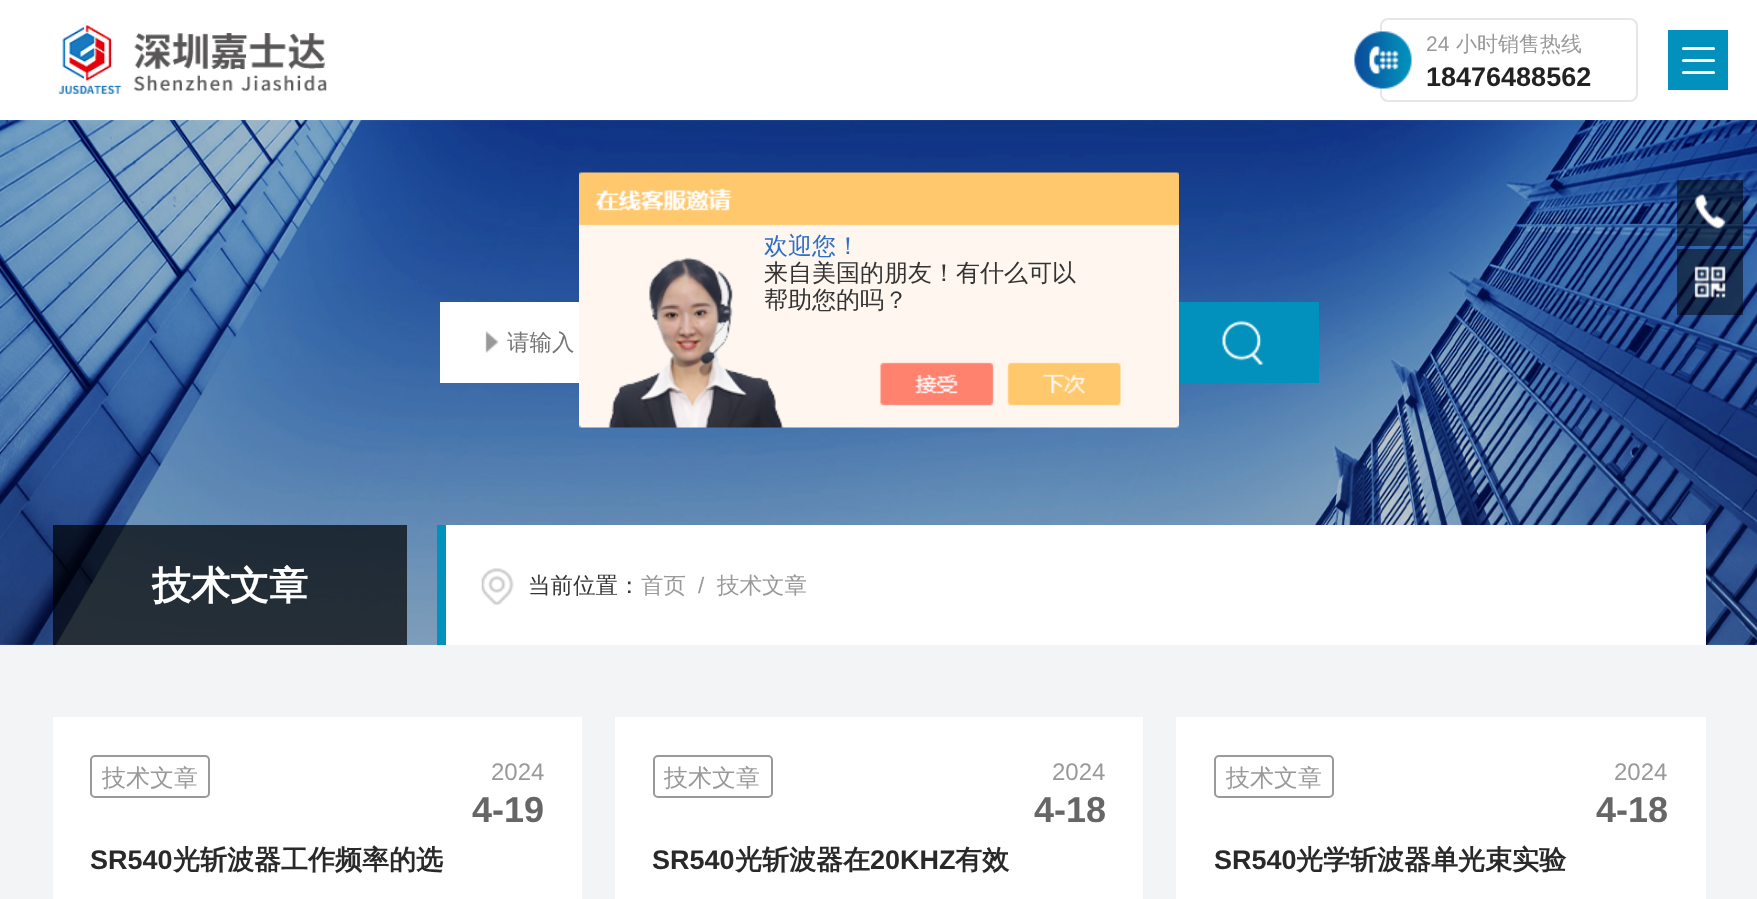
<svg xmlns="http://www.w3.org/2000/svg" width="1757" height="899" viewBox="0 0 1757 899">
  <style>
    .t1 { font: 21px Liberation Sans; fill: #999; }
    .t2 { font: 500 21px WenQuanYi Zen Hei; fill: #999; }
    .t3 { font: bold 27px Liberation Sans; fill: #222; }
    .t4 { font: 500 24px WenQuanYi Zen Hei; fill: #2e6ec6; }
    .t5 { font: 500 24px WenQuanYi Zen Hei; fill: #333; }
    .t6 { font: 500 22.5px WenQuanYi Zen Hei; fill: #757575; }
    .t7 { font: bold 39px WenQuanYi Zen Hei; fill: #fff; }
    .t8 { font: 500 22.5px WenQuanYi Zen Hei; fill: #333; }
    .t9 { font: 500 22.5px WenQuanYi Zen Hei; fill: #999; }
    .t10 { font: 22.5px Liberation Sans; fill: #999; }
    .t11 { font: 500 24px WenQuanYi Zen Hei; fill: #999; }
    .t12 { font: 24px Liberation Sans; fill: #999; }
    .t13 { font: bold 36px Liberation Sans; fill: #666; }
    .t14 { font: bold 27px Liberation Sans; fill: #292929; }
    .t15 { font: bold 27px WenQuanYi Zen Hei; fill: #292929; }
  </style>
  <rect width="100%" height="100%" fill="#fff"/>
  <image x="58" y="25" width="269" height="70" href="images/1.png"/>
  <rect x="1381" y="19" width="256" height="82" rx="7" fill="none" stroke="#e6e6e6" stroke-width="2"/>
  <image x="1354" y="31" width="58" height="58" href="images/2.png"/>
  <text x="1426" y="51" class="t1">24</text>
  <text x="1456" y="51" class="t2">小时销售热线</text>
  <text x="1426" y="86" class="t3">18476488562</text>
  <rect x="1668" y="30" width="60" height="60" fill="#0291bc"/>
  <rect x="1682" y="47" width="33" height="3" rx="1.5" fill="#fff"/>
  <rect x="1682" y="59" width="33" height="3" rx="1.5" fill="#fff"/>
  <rect x="1682" y="71" width="33" height="3" rx="1.5" fill="#fff"/>
  <image x="0" y="120" width="1757" height="525" href="images/6.png"/>
  <image x="579" y="172" width="600" height="256" href="images/3.png"/>
  <text x="764" y="254" class="t4">欢迎您！</text>
  <text x="764" y="281" class="t5">来自美国的朋友！有什么可以</text>
  <text x="764" y="308" class="t5">帮助您的吗？</text>
  <rect x="1677" y="180" width="66" height="66" fill="#00000080"/>
  <image x="1694" y="194" width="32" height="35" href="images/4.png"/>
  <rect x="1677" y="249" width="66" height="66" fill="#00000080"/>
  <image x="1694" y="266" width="32" height="32" href="images/5.png"/>
  <rect x="440" y="302" width="139" height="81" fill="#fff"/>
  <image x="485" y="331" width="14" height="22" href="images/7.png"/>
  <text x="507" y="350" class="t6">请输入</text>
  <rect x="1179" y="302" width="140" height="81" fill="#0291bc"/>
  <image x="1222" y="320" width="42" height="45" href="images/8.png"/>
  <rect x="53" y="525" width="354" height="120" fill="#000000b3"/>
  <text x="152" y="599" class="t7">技术文章</text>
  <rect x="446" y="525" width="1260" height="120" fill="#fff"/>
  <rect x="437" y="525" width="9" height="120" fill="#0291bc"/>
  <image x="481" y="568" width="33" height="37" href="images/9.png"/>
  <text x="528" y="593" class="t8">当前位置：</text>
  <text x="641" y="593" class="t9">首页</text>
  <text x="698" y="593" class="t10">/</text>
  <text x="717" y="593" class="t9">技术文章</text>
  <rect x="0" y="645" width="1757" height="254" fill="#f3f4f6"/>
  <rect x="53" y="717" width="529" height="182" fill="#fff"/>
  <rect x="91" y="756" width="118" height="41" rx="4" fill="none" stroke="#999" stroke-width="2"/>
  <text x="102" y="786" class="t11">技术文章</text>
  <text x="491" y="780" class="t12">2024</text>
  <text x="472" y="822" class="t13">4-19</text>
  <text x="90" y="869" class="t14">SR540</text>
  <text x="173" y="869" class="t15">光斩波器工作频率的选</text>
  <rect x="615" y="717" width="528" height="182" fill="#fff"/>
  <rect x="654" y="756" width="118" height="41" rx="4" fill="none" stroke="#999" stroke-width="2"/>
  <text x="664" y="786" class="t11">技术文章</text>
  <text x="1052" y="780" class="t12">2024</text>
  <text x="1034" y="822" class="t13">4-18</text>
  <text x="652" y="869" class="t14">SR540</text>
  <text x="735" y="869" class="t15">光斩波器在</text>
  <text x="870" y="869" class="t14">20KHZ</text>
  <text x="955" y="869" class="t15">有效</text>
  <rect x="1176" y="717" width="530" height="182" fill="#fff"/>
  <rect x="1215" y="756" width="118" height="41" rx="4" fill="none" stroke="#999" stroke-width="2"/>
  <text x="1226" y="786" class="t11">技术文章</text>
  <text x="1614" y="780" class="t12">2024</text>
  <text x="1596" y="822" class="t13">4-18</text>
  <text x="1214" y="869" class="t14">SR540</text>
  <text x="1296" y="869" class="t15">光学斩波器单光束实验</text>
</svg>
